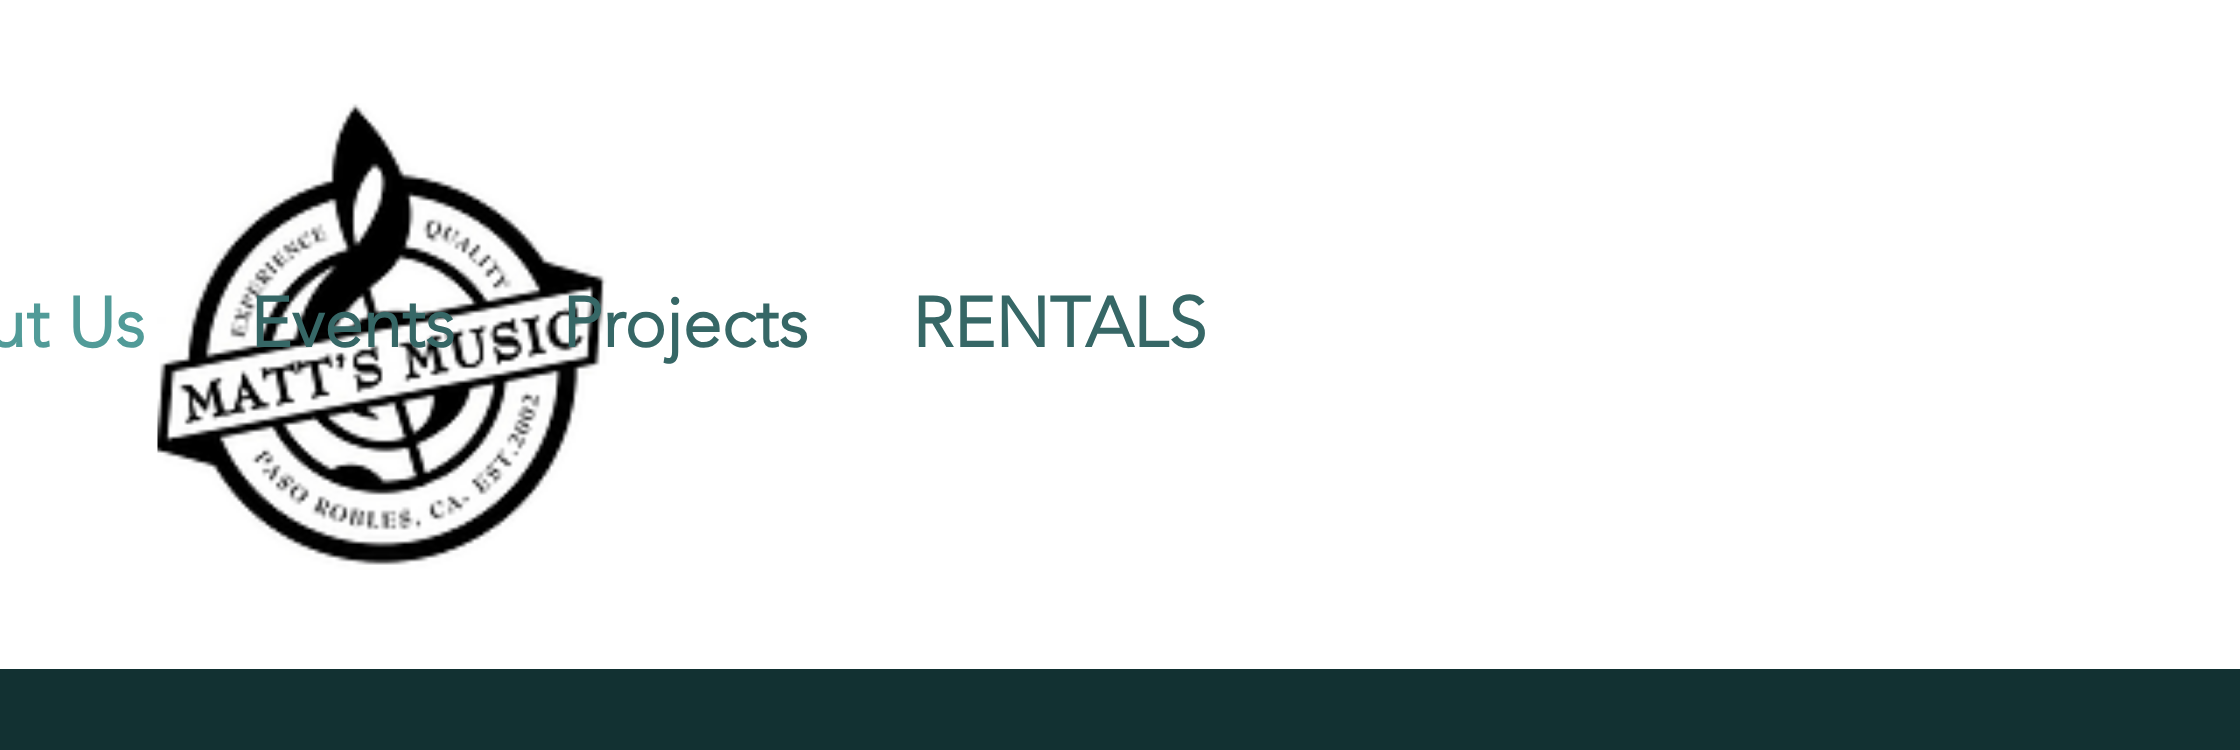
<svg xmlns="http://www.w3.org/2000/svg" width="2240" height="750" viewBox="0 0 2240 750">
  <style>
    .t1 { font: bold 70px 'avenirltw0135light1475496'; fill: #519b98; }
    .t2 { font: bold 70px 'avenirltw0135light1475496'; fill: #366766; }
  </style>
  <rect width="100%" height="100%" fill="#123132"/>
  <rect x="0" y="0" width="2240" height="669" fill="#fff"/>
  <image x="157" y="103" width="450" height="467" href="images/1.png"/>
  <text x="-13" y="347" class="t1">ut Us</text>
  <text x="250" y="347" class="t2">Events</text>
  <text x="562" y="347" class="t2">Projects</text>
  <text x="912" y="347" class="t2">RENTALS</text>
</svg>
